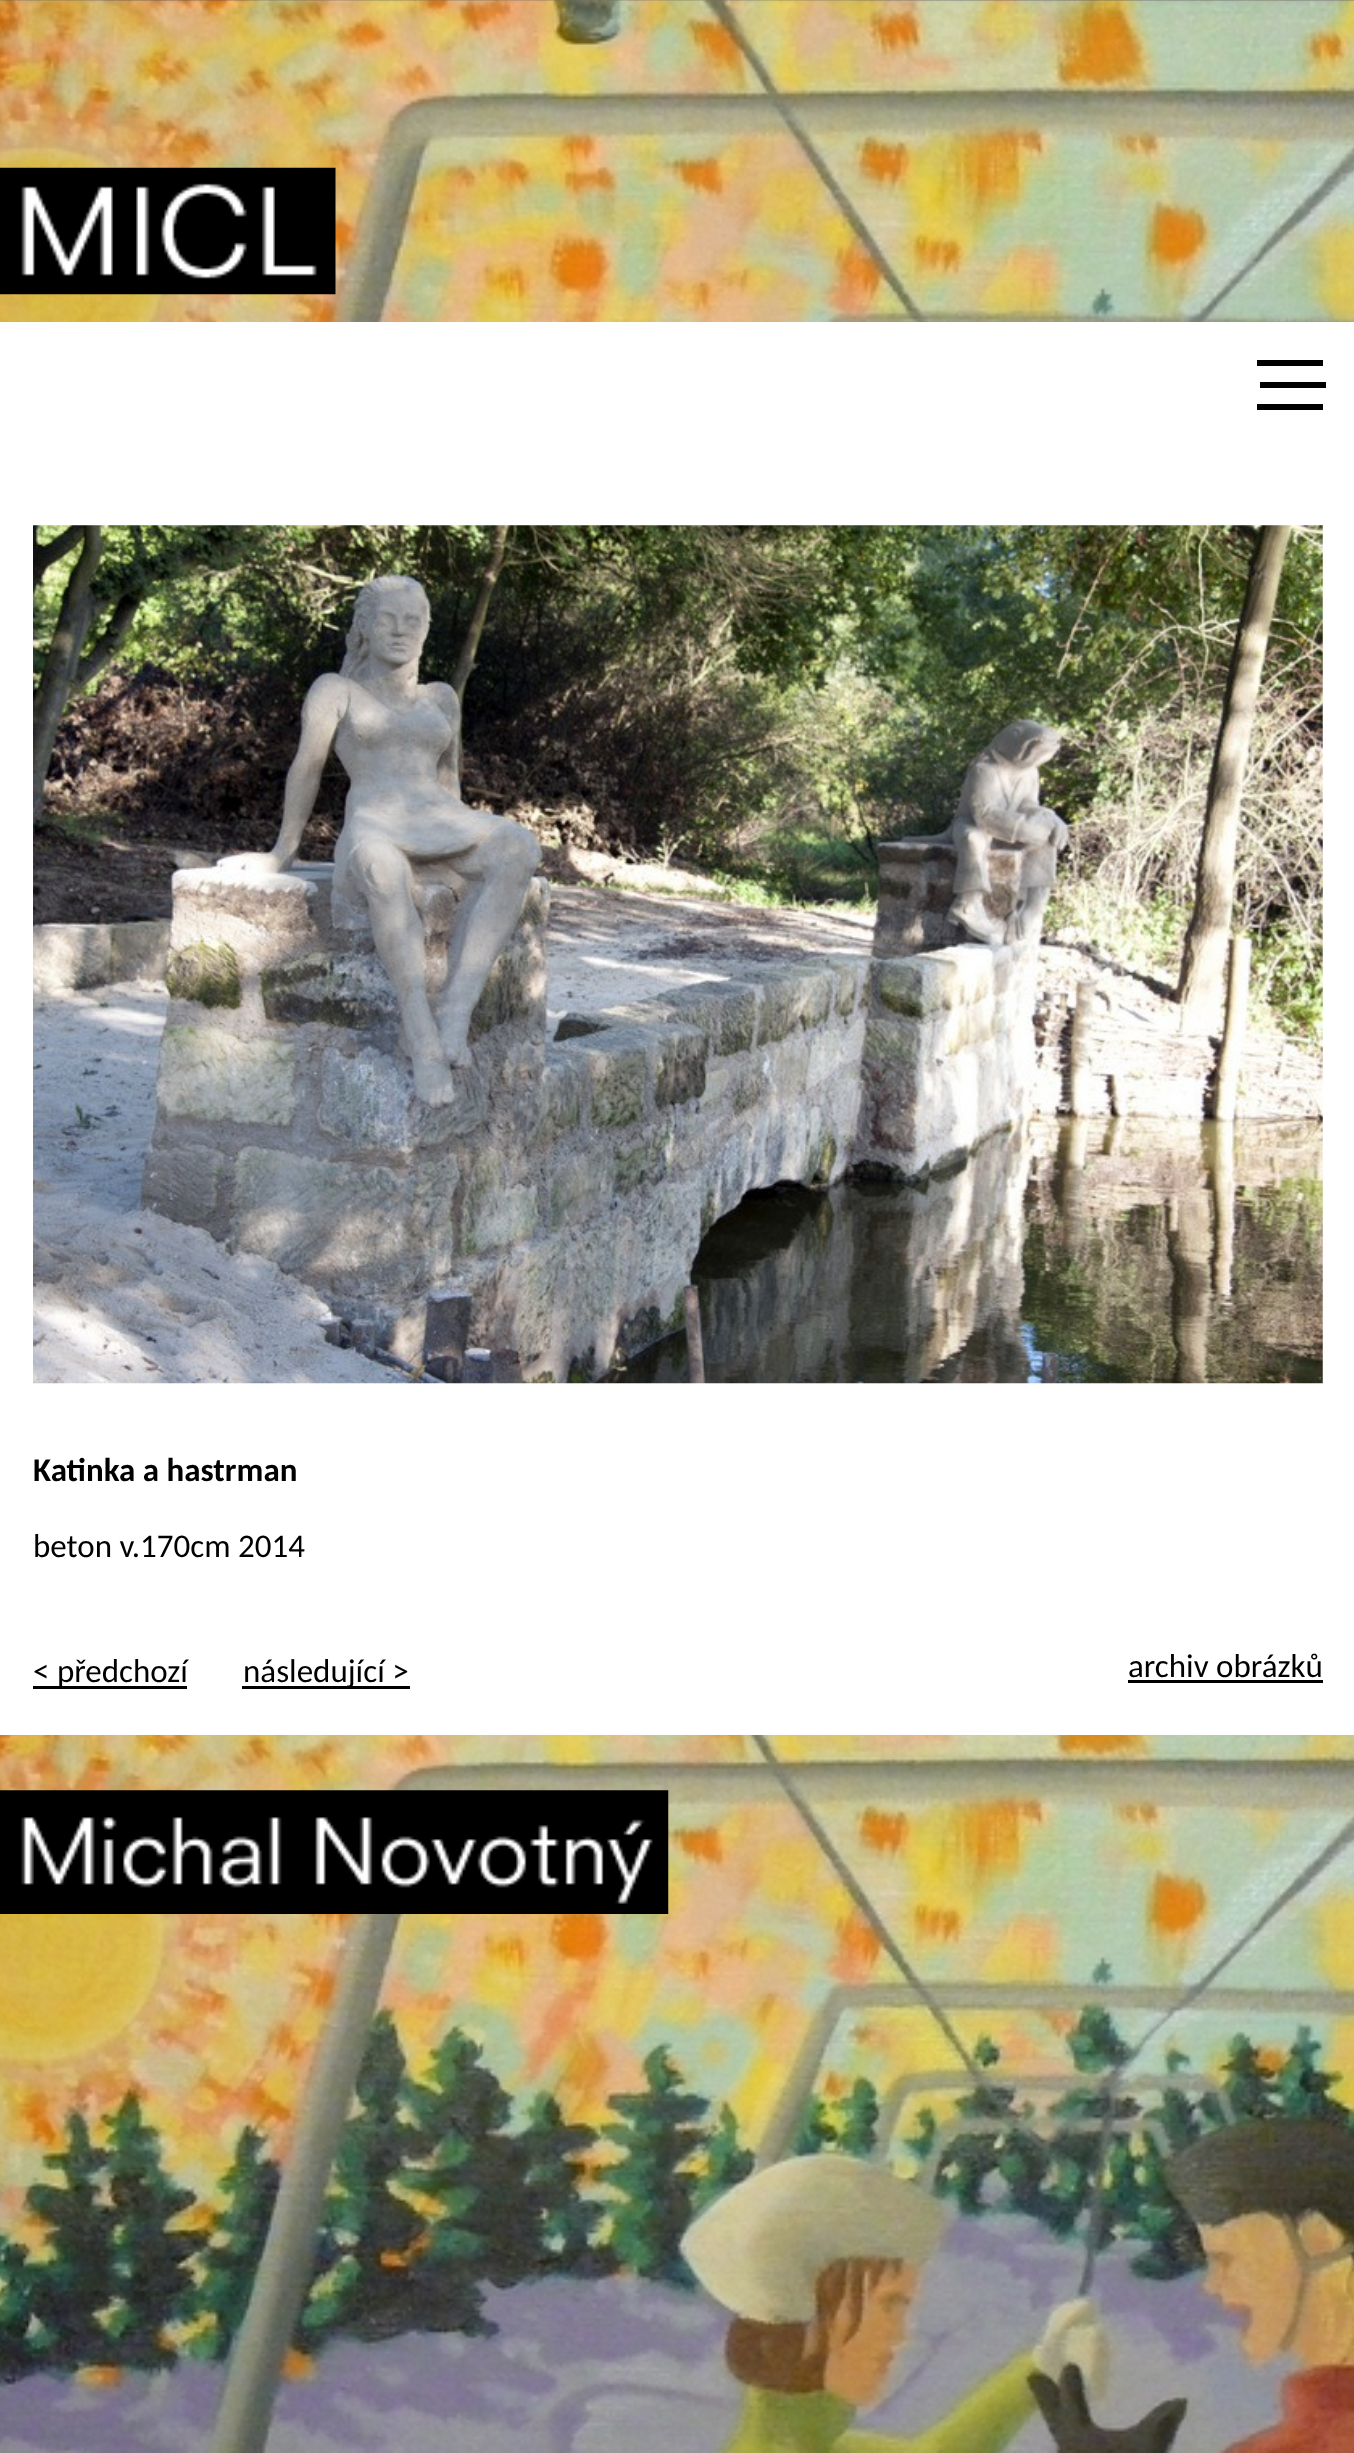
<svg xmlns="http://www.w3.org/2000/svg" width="1354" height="2453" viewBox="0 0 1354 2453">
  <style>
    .t1 { font: bold 33px Carlito; fill: #000; }
    .t2 { font: 33px Carlito; fill: #000; }
  </style>
  <rect width="100%" height="100%" fill="#fff"/>
  <image x="0" y="0" width="1354" height="2453" href="images/1.png"/>
  <image x="0" y="167" width="336" height="128" href="images/2.png"/>
  <rect x="0" y="322" width="1354" height="1413" fill="#fff"/>
  <rect x="1257" y="360" width="66" height="6" fill="#000"/>
  <rect x="1260" y="382" width="66" height="6" fill="#000"/>
  <rect x="1257" y="404" width="66" height="6" fill="#000"/>
  <image x="33" y="525" width="1290" height="859" href="images/3.png"/>
  <text x="33" y="1481" class="t1">Katinka a hastrman</text>
  <text x="33" y="1557" class="t2">beton v.170cm 2014</text>
  <rect x="33" y="1686" width="154" height="3" fill="#000"/>
  <text x="33" y="1682" class="t2">&lt; předchozí</text>
  <rect x="242" y="1686" width="168" height="3" fill="#000"/>
  <text x="243" y="1682" class="t2">následující &gt;</text>
  <text x="1128" y="1677" class="t2">archiv obrázků</text>
  <rect x="1128" y="1680" width="195" height="3" fill="#000"/>
  <image x="0" y="1790" width="669" height="124" href="images/4.png"/>
</svg>
